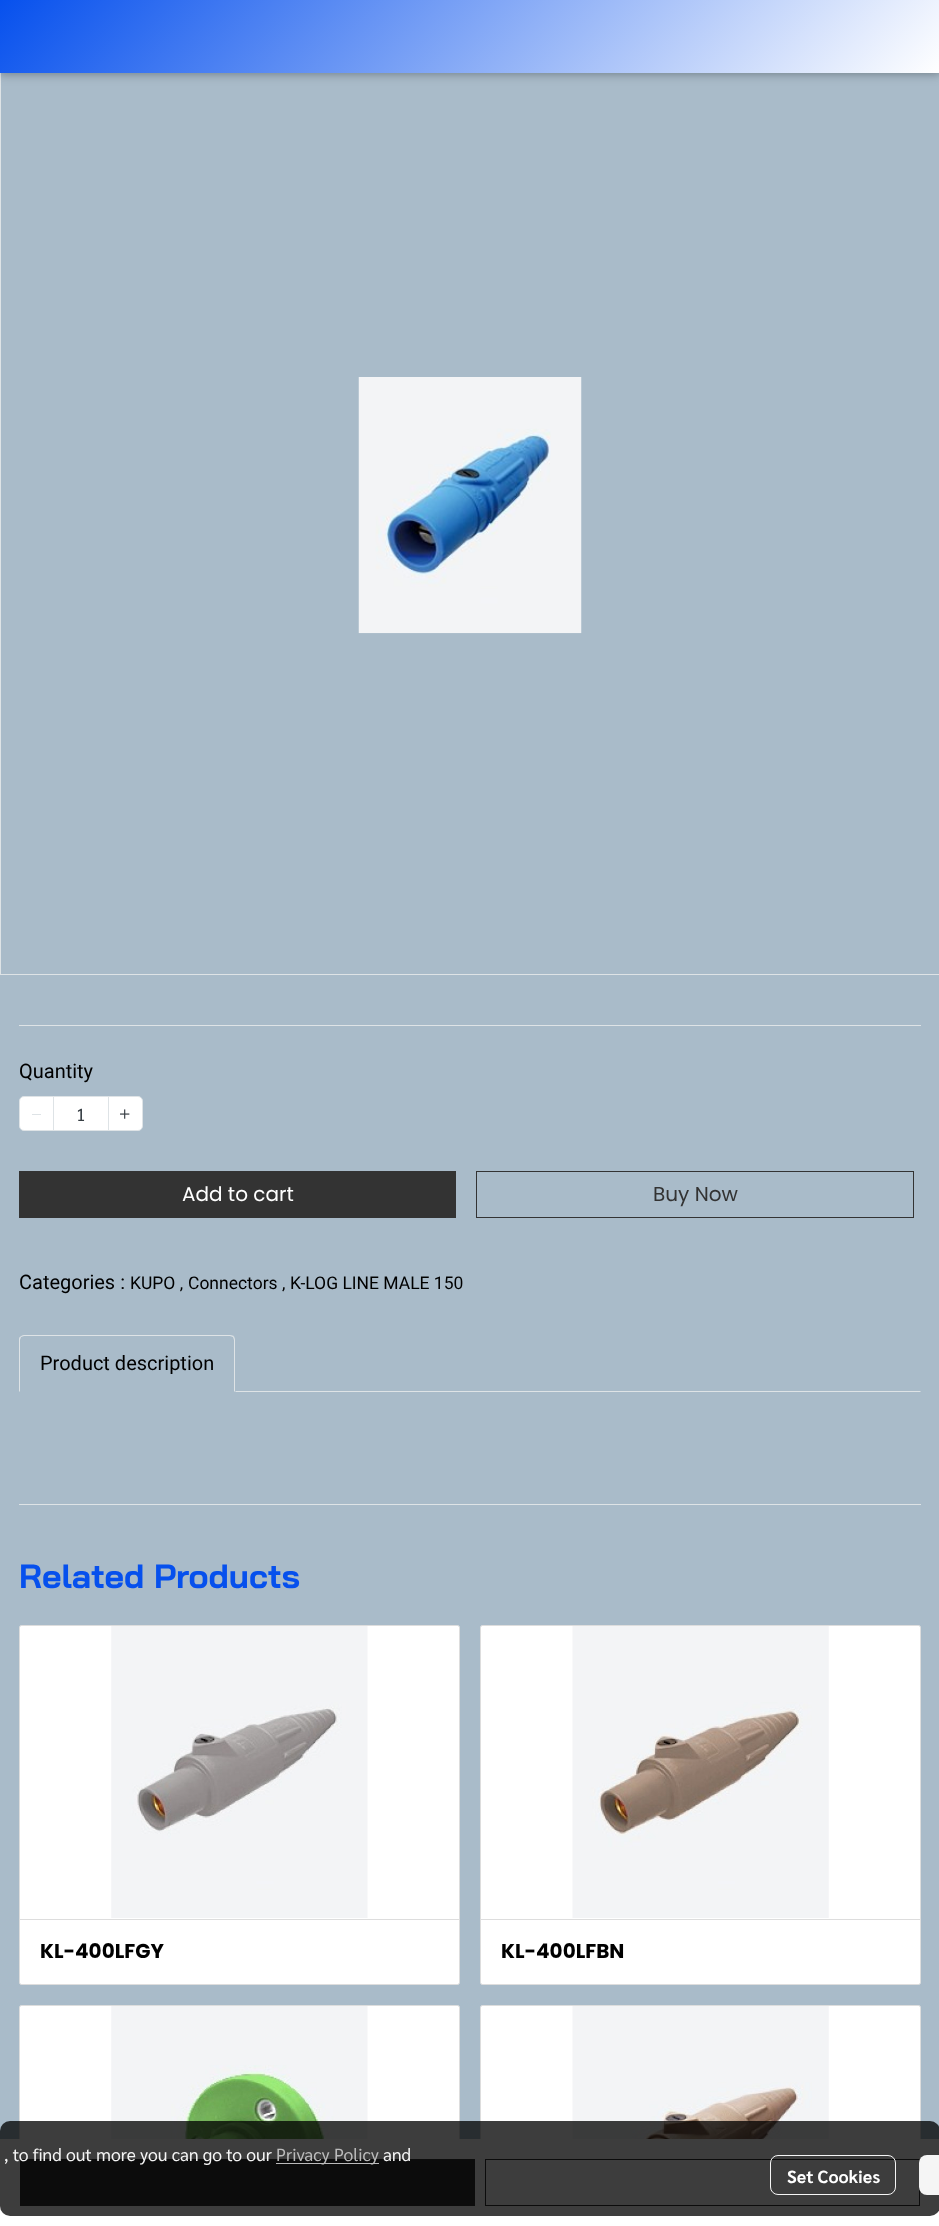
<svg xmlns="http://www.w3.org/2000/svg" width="939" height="2226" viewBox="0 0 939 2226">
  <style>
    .t1 { font: 20px Roboto; fill: #000; }
    .t2 { font: 17.5px Sarabun; fill: #373e44; }
    .t3 { font: 20px Poppins; fill: #fff; }
    .t4 { font: 20px Poppins; fill: #333; }
    .t5 { font: 17.5px Roboto; fill: #000; }
    .t6 { font: bold 33.75px Bai Jamjuree; fill: #0650ed; }
    .t7 { font: bold 20px Poppins; fill: #000; }
    .t8 { font: 17.5px Sarabun; fill: #f5f5f5; }
    .t9 { font: 17.5px Sarabun; fill: #bbb; }
    .t10 { font: bold 17.5px Sarabun; fill: #fff; }
  </style>
  <defs>
    <linearGradient id="g1" gradientUnits="userSpaceOnUse" x1="208" y1="-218" x2="732" y2="288"><stop offset="0" stop-color="#0650ed"/><stop offset="1" stop-color="#fff"/></linearGradient>
  </defs>
  <rect width="100%" height="100%" fill="#a9bbc9"/>
  <image x="358" y="377" width="224" height="257" href="images/1.png"/>
  <rect x="0.5" y="35.5" width="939" height="939" fill="none" stroke="#dee3e6"/>
  <rect x="0" y="3" width="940" height="72" fill="#0000001f" filter="blur(6px)"/>
  <rect x="0" y="3" width="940" height="72" fill="#00000029" filter="blur(3px)"/>
  <rect x="0" y="0" width="939" height="73" fill="url(#g1)"/>
  <rect x="19" y="1025" width="902" height="1" fill="#dee3e6"/>
  <text x="19" y="1078" class="t1">Quantity</text>
  <path d="M24 1096.5H53.5V1130.5H24C21.5 1130.5 19.5 1128.5 19.5 1126V1101C19.5 1098.5 21.5 1096.5 24 1096.5Z" fill="#fff" stroke="#dee3e6"/>
  <rect x="32" y="1114" width="9" height="1" fill="#dee3e6"/>
  <path d="M108.5 1096.5H138C140.5 1096.5 142.5 1098.5 142.5 1101V1126C142.5 1128.5 140.5 1130.5 138 1130.5H108.5Z" fill="#fff" stroke="#dee3e6"/>
  <rect x="53.5" y="1096.5" width="55" height="34" fill="#fff" stroke="#dee3e6"/>
  <text x="76" y="1121" class="t2">1</text>
  <image x="120" y="1109" width="10" height="10" href="images/2.png"/>
  <rect x="19" y="1171" width="437" height="47" fill="#333"/>
  <text x="182" y="1201" class="t3">Add to cart</text>
  <rect x="476.5" y="1171.5" width="437" height="46" fill="none" stroke="#333"/>
  <text x="653" y="1201" class="t4">Buy Now</text>
  <text x="19" y="1289" class="t1">Categories :</text>
  <text x="130" y="1289" class="t5">KUPO ,</text>
  <text x="188" y="1289" class="t5">Connectors ,</text>
  <text x="290" y="1289" class="t5">K-LOG LINE MALE 150</text>
  <path d="M24 1335C22 1335 21 1336 20 1337H21L24 1336H230L233 1337L234 1336C233 1336 232 1335 230 1335Z" fill="#dee3e6"/>
  <path d="M235 1392V1340C235 1338 234 1337 234 1336L233 1337L234 1340V1391Z" fill="#dee3e6"/>
  <path d="M20 1337C19 1337 19 1339 19 1340V1392L20 1391V1340L21 1337Z" fill="#dee3e6"/>
  <text x="40" y="1370" class="t1">Product description</text>
  <path d="M921 1392H235L236 1391H920Z" fill="#dee3e6"/>
  <rect x="19" y="1504" width="902" height="1" fill="#dee3e6"/>
  <text x="19" y="1588" class="t6">Related Products</text>
  <rect x="19.5" y="1625.5" width="440" height="359" rx="2" fill="#fff" stroke="#ddd"/>
  <rect x="20" y="1919" width="439" height="1" fill="#ddd"/>
  <image x="111" y="1626" width="257" height="292" href="images/3.png"/>
  <text x="40" y="1958" class="t7">KL-400LFGY</text>
  <rect x="480.5" y="1625.5" width="440" height="359" rx="2" fill="#fff" stroke="#ddd"/>
  <rect x="481" y="1919" width="439" height="1" fill="#ddd"/>
  <image x="572" y="1626" width="257" height="292" href="images/4.png"/>
  <text x="501" y="1958" class="t7">KL-400LFBN</text>
  <rect x="19.5" y="2005.5" width="440" height="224" rx="2" fill="#fff" stroke="#ddd"/>
  <image x="111" y="2006" width="257" height="133" href="images/5.png"/>
  <rect x="480.5" y="2005.5" width="440" height="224" rx="2" fill="#fff" stroke="#ddd"/>
  <image x="572" y="2006" width="257" height="133" href="images/6.png"/>
  <rect x="0" y="2139" width="939" height="87" fill="#fff"/>
  <rect x="20" y="2159" width="455" height="47" fill="#333"/>
  <rect x="485.5" y="2159.5" width="434" height="46" fill="none" stroke="#333"/>
  <rect x="0" y="2121" width="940" height="95" rx="10" fill="#000000c2"/>
  <text x="4" y="2161" class="t8">, to find out more you can go to our</text>
  <rect x="276" y="2163" width="103" height="1" fill="#bbb"/>
  <text x="276" y="2161" class="t9">Privacy Policy</text>
  <text x="383" y="2161" class="t8">and</text>
  <rect x="770.5" y="2155.5" width="125" height="39" rx="7.5" fill="none" stroke="#fffffff2"/>
  <text x="787" y="2183" class="t10">Set Cookies</text>
  <rect x="919" y="2155" width="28" height="40" rx="8" fill="#fffffff2"/>
</svg>
